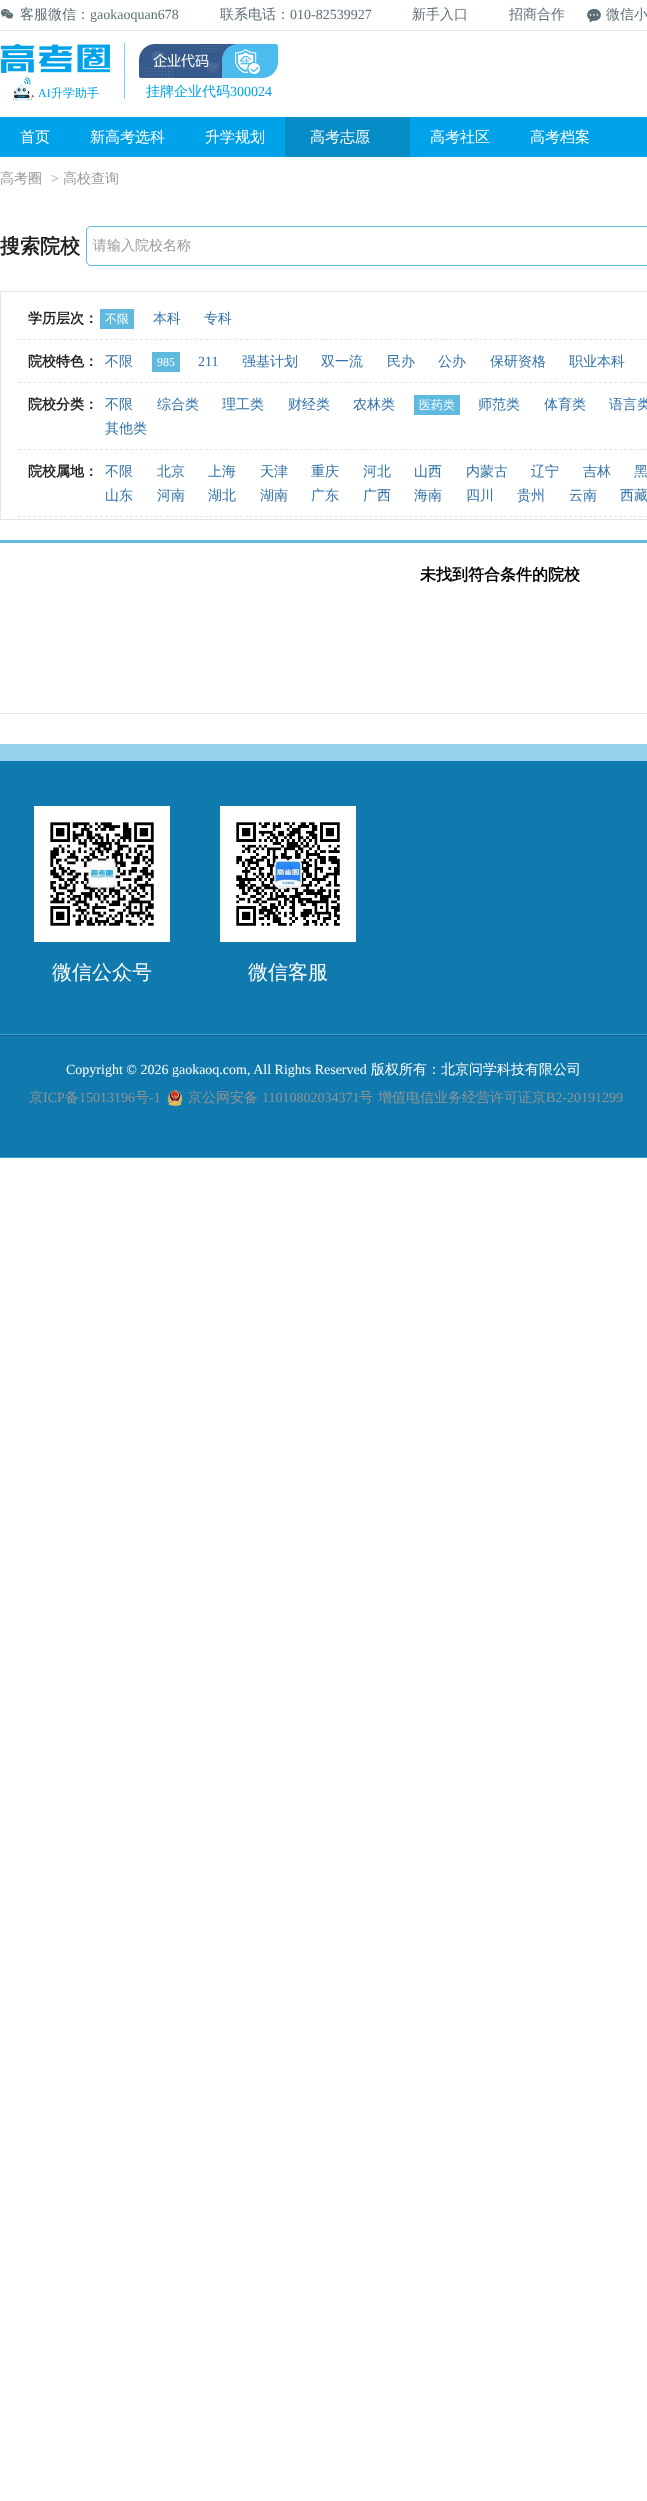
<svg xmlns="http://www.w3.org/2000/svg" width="647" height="2501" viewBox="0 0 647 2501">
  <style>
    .t1 { font: 500 14px WenQuanYi Zen Hei; fill: #5e6f76; }
    .t2 { font: 14px Liberation Serif; fill: #5e6f76; }
    .t3 { font: 12px Liberation Serif; fill: #00a2e9; }
    .t4 { font: 500 12px WenQuanYi Zen Hei; fill: #00a2e9; }
    .t5 { font: 500 14px WenQuanYi Zen Hei; fill: #00a2e9; }
    .t6 { font: 14px Liberation Serif; fill: #00a2e9; }
    .t7 { font: 500 15px WenQuanYi Zen Hei; fill: #fff; }
    .t8 { font: 500 14px WenQuanYi Zen Hei; fill: #999; }
    .t9 { font: 14px Liberation Serif; fill: #999; }
    .t10 { font: bold 20px WenQuanYi Zen Hei; fill: #222; }
    .t11 { font: bold 14px WenQuanYi Zen Hei; fill: #222; }
    .t12 { font: 500 12px WenQuanYi Zen Hei; fill: #fff; }
    .t13 { font: 500 14px WenQuanYi Zen Hei; fill: #3071a7; }
    .t14 { font: 12px Liberation Serif; fill: #fff; }
    .t15 { font: 14px Liberation Serif; fill: #3071a7; }
    .t16 { font: bold 16px WenQuanYi Zen Hei; fill: #000; }
    .t17 { font: 500 20px WenQuanYi Zen Hei; fill: #fff; }
    .t18 { font: 14px Liberation Serif; fill: #fff; }
    .t19 { font: 500 14px WenQuanYi Zen Hei; fill: #fff; }
    .t20 { font: 500 14px WenQuanYi Zen Hei; fill: #939393; }
    .t21 { font: 14px Liberation Serif; fill: #939393; }
  </style>
  <rect width="100%" height="100%" fill="#fff"/>
  <rect x="0" y="30" width="647" height="1" fill="#e6e6e6"/>
  <image x="0" y="9" width="14" height="10" href="images/1.png"/>
  <text x="20" y="19" class="t1">客服微信：</text>
  <text x="90" y="19" class="t2">gaokaoquan678</text>
  <text x="220" y="19" class="t1">联系电话：</text>
  <text x="290" y="19" class="t2">010-82539927</text>
  <text x="412" y="19" class="t1">新手入口</text>
  <text x="509" y="19" class="t1">招商合作</text>
  <image x="587" y="8" width="14" height="15" href="images/2.png"/>
  <text x="606" y="19" class="t1">微信小</text>
  <image x="1" y="44" width="109" height="29" href="images/3.png"/>
  <image x="13" y="77" width="22" height="24" href="images/4.png"/>
  <text x="38" y="97" class="t3">AI</text>
  <text x="51" y="97" class="t4">升学助手</text>
  <rect x="124" y="43" width="1" height="56" fill="#80d1f4"/>
  <image x="139" y="44" width="139" height="34" href="images/5.png"/>
  <text x="146" y="96" class="t5">挂牌企业代码</text>
  <text x="230" y="96" class="t6">300024</text>
  <rect x="0" y="117" width="647" height="40" fill="#00a2e9"/>
  <text x="20" y="142" class="t7">首页</text>
  <text x="90" y="142" class="t7">新高考选科</text>
  <text x="205" y="142" class="t7">升学规划</text>
  <rect x="285" y="117" width="125" height="40" fill="#068dc8"/>
  <text x="310" y="142" class="t7">高考志愿</text>
  <text x="430" y="142" class="t7">高考社区</text>
  <text x="530" y="142" class="t7">高考档案</text>
  <text x="0" y="183" class="t8">高考圈</text>
  <text x="51" y="183" class="t9">&gt;</text>
  <text x="63" y="183" class="t8">高校查询</text>
  <text x="0" y="253" class="t10">搜索院校</text>
  <rect x="86.5" y="226.5" width="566" height="39" rx="4.5" fill="none" stroke="#60badf"/>
  <text x="93" y="250" class="t8">请输入院校名称</text>
  <rect x="0.5" y="291.5" width="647" height="228" fill="none" stroke="#e4e4e4"/>
  <path d="M18 339.5H98" fill="none" stroke="#e5e5e5" stroke-dasharray="3 2.13"/>
  <text x="28" y="323" class="t11">学历层次：</text>
  <path d="M100 339.5H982" fill="none" stroke="#e5e5e5" stroke-dasharray="3 1.99"/>
  <rect x="100" y="309" width="34" height="20" fill="#60badf"/>
  <text x="105" y="323" class="t12">不限</text>
  <text x="153" y="323" class="t13">本科</text>
  <text x="204" y="323" class="t13">专科</text>
  <path d="M18 382.5H98" fill="none" stroke="#e5e5e5" stroke-dasharray="3 2.13"/>
  <text x="28" y="366" class="t11">院校特色：</text>
  <path d="M100 382.5H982" fill="none" stroke="#e5e5e5" stroke-dasharray="3 1.99"/>
  <text x="105" y="366" class="t13">不限</text>
  <rect x="152" y="352" width="28" height="20" fill="#60badf"/>
  <text x="157" y="366" class="t14">985</text>
  <text x="198" y="366" class="t15">211</text>
  <text x="242" y="366" class="t13">强基计划</text>
  <text x="321" y="366" class="t13">双一流</text>
  <text x="387" y="366" class="t13">民办</text>
  <text x="438" y="366" class="t13">公办</text>
  <text x="490" y="366" class="t13">保研资格</text>
  <text x="569" y="366" class="t13">职业本科</text>
  <path d="M18 449.5H98" fill="none" stroke="#e5e5e5" stroke-dasharray="3 2.13"/>
  <text x="28" y="409" class="t11">院校分类：</text>
  <path d="M100 449.5H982" fill="none" stroke="#e5e5e5" stroke-dasharray="3 1.99"/>
  <text x="105" y="409" class="t13">不限</text>
  <text x="157" y="409" class="t13">综合类</text>
  <text x="222" y="409" class="t13">理工类</text>
  <text x="288" y="409" class="t13">财经类</text>
  <text x="353" y="409" class="t13">农林类</text>
  <rect x="414" y="395" width="46" height="20" fill="#60badf"/>
  <text x="419" y="409" class="t12">医药类</text>
  <text x="478" y="409" class="t13">师范类</text>
  <text x="544" y="409" class="t13">体育类</text>
  <text x="609" y="409" class="t13">语言类</text>
  <text x="105" y="433" class="t13">其他类</text>
  <path d="M18 516.5H98" fill="none" stroke="#e5e5e5" stroke-dasharray="3 2.13"/>
  <text x="28" y="476" class="t11">院校属地：</text>
  <path d="M100 516.5H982" fill="none" stroke="#e5e5e5" stroke-dasharray="3 1.99"/>
  <text x="105" y="476" class="t13">不限</text>
  <text x="157" y="476" class="t13">北京</text>
  <text x="208" y="476" class="t13">上海</text>
  <text x="260" y="476" class="t13">天津</text>
  <text x="311" y="476" class="t13">重庆</text>
  <text x="363" y="476" class="t13">河北</text>
  <text x="414" y="476" class="t13">山西</text>
  <text x="466" y="476" class="t13">内蒙古</text>
  <text x="531" y="476" class="t13">辽宁</text>
  <text x="583" y="476" class="t13">吉林</text>
  <text x="634" y="476" class="t13">黑</text>
  <text x="105" y="500" class="t13">山东</text>
  <text x="157" y="500" class="t13">河南</text>
  <text x="208" y="500" class="t13">湖北</text>
  <text x="260" y="500" class="t13">湖南</text>
  <text x="311" y="500" class="t13">广东</text>
  <text x="363" y="500" class="t13">广西</text>
  <text x="414" y="500" class="t13">海南</text>
  <text x="466" y="500" class="t13">四川</text>
  <text x="517" y="500" class="t13">贵州</text>
  <text x="569" y="500" class="t13">云南</text>
  <text x="620" y="500" class="t13">西藏</text>
  <rect x="0" y="540" width="647" height="3" fill="#60badf"/>
  <rect x="0" y="713" width="647" height="1" fill="#e4e4e4"/>
  <text x="420" y="580" class="t16">未找到符合条件的院校</text>
  <rect x="0" y="761" width="647" height="273" fill="#107aae"/>
  <rect x="0" y="744" width="647" height="17" fill="#95d1eb"/>
  <rect x="0" y="1034" width="647" height="1" fill="#429bc5"/>
  <rect x="38" y="810" width="128" height="128" fill="none" stroke="#fff" stroke-width="8"/>
  <image x="42" y="814" width="120" height="120" href="images/6.png"/>
  <text x="52" y="979" class="t17">微信公众号</text>
  <rect x="224" y="810" width="128" height="128" fill="none" stroke="#fff" stroke-width="8"/>
  <image x="228" y="814" width="120" height="120" href="images/7.png"/>
  <text x="248" y="979" class="t17">微信客服</text>
  <rect x="0" y="1036" width="647" height="121" fill="#107aae"/>
  <rect x="0" y="1035" width="647" height="1" fill="#086493"/>
  <rect x="0" y="1157" width="647" height="1" fill="#429bc5"/>
  <text x="66" y="1074" class="t18">Copyright © 2026 gaokaoq.com, All Rights Reserved</text>
  <text x="371" y="1074" class="t19">版权所有：北京问学科技有限公司</text>
  <text x="29" y="1102" class="t20">京</text>
  <text x="43" y="1102" class="t21">ICP</text>
  <text x="65" y="1102" class="t20">备</text>
  <text x="79" y="1102" class="t21">15013196</text>
  <text x="135" y="1102" class="t20">号</text>
  <text x="149" y="1102" class="t21">-1</text>
  <image x="167" y="1090" width="16" height="16" href="images/8.png"/>
  <text x="188" y="1102" class="t20">京公网安备</text>
  <text x="262" y="1102" class="t21">11010802034371</text>
  <text x="359" y="1102" class="t20">号</text>
  <text x="378" y="1102" class="t20">增值电信业务经营许可证京</text>
  <text x="546" y="1102" class="t21">B2-20191299</text>
</svg>
